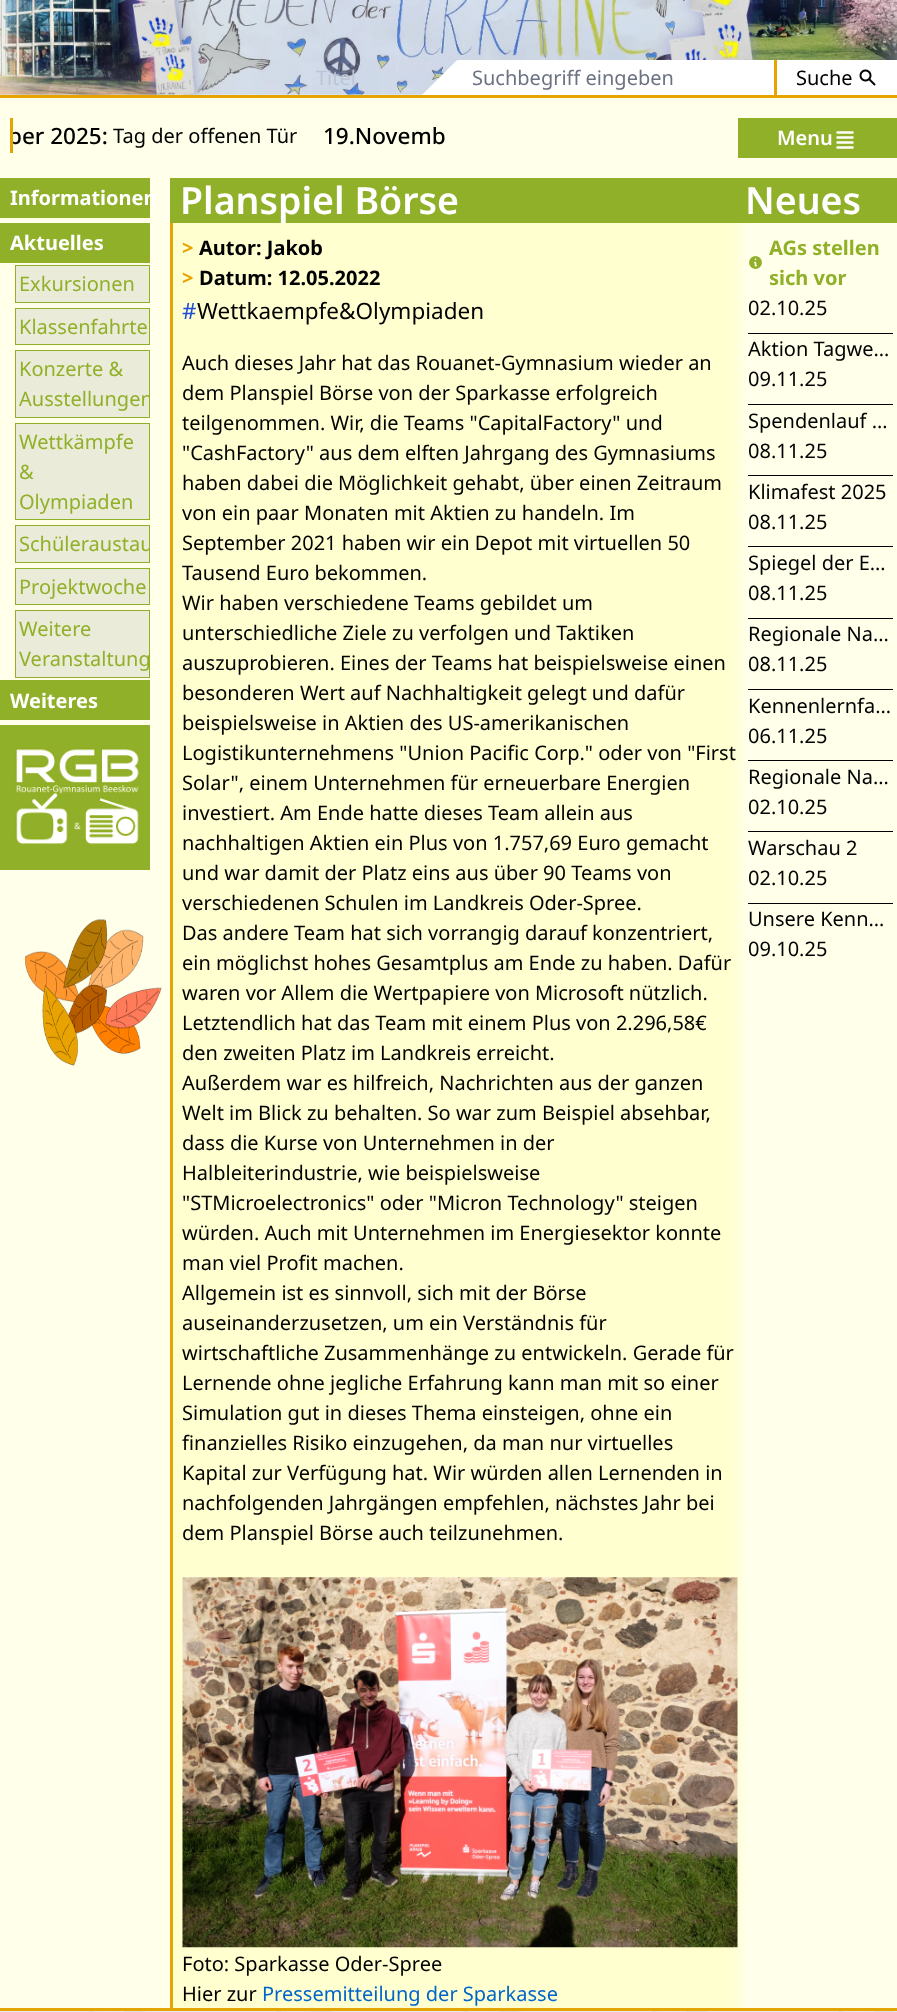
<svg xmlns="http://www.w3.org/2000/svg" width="897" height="2012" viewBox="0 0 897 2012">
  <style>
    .t1 { font: 20px Noto Sans; fill: #bbc5d6; }
    .t2 { font: 20px Noto Sans; fill: #6b7280; }
    .t3 { font: 20px Noto Sans; fill: #000; }
    .t4 { font: 500 22.5px Noto Sans; fill: #000; }
    .t5 { font: 600 20px Noto Sans; fill: #fff; }
    .t6 { font: bold 20px Noto Sans; fill: #fff; }
    .t7 { font: 20px Noto Sans; fill: #91b029; }
    .t8 { font: 600 37.5px Noto Sans; fill: #fff; }
    .t9 { font: bold 20px Noto Sans; fill: #e6a400; }
    .t10 { font: bold 20px Noto Sans; fill: #000; }
    .t11 { font: 22.5px Noto Sans; fill: #1d4ed8; }
    .t12 { font: 22.5px Noto Sans; fill: #000; }
    .t13 { font: 20px Noto Sans; fill: #06c; }
    .t14 { font: bold 20px Noto Sans; fill: #91b029; }
  </style>
  <defs>
    <clipPath id="clip1"><rect x="403" y="60" width="55" height="35"/></clipPath>
    <clipPath id="clip2"><rect x="13" y="118" width="436" height="35"/></clipPath>
    <clipPath id="clip3"><rect x="0" y="265" width="150" height="413"/></clipPath>
    <linearGradient id="g1" gradientUnits="userSpaceOnUse" x1="172" y1="1093" x2="748" y2="1093"><stop offset="0.97" stop-color="#ffffd0"/><stop offset="1" stop-color="#ffffea"/></linearGradient>
  </defs>
  <rect width="100%" height="100%" fill="#fff"/>
  <image x="0" y="2011" width="897" height="1" href="images/1.png"/>
  <rect x="0" y="94" width="897" height="1914" fill="#ffffea"/>
  <rect x="0" y="95" width="897" height="3" fill="#e6a400"/>
  <image x="0" y="0" width="897" height="95" href="images/2.png"/>
  <text x="316" y="85" class="t1">Titel</text>
  <g clip-path="url(#clip1)">
    <path d="M418 99L457 60L482 85L443 124Z" fill="#fff"/>
  </g>
  <rect x="458" y="60" width="316" height="35" fill="#fff"/>
  <text x="472" y="85" class="t2">Suchbegriff eingeben</text>
  <rect x="777" y="60" width="120" height="35" fill="#fff"/>
  <rect x="774" y="60" width="3" height="35" fill="#e6a400"/>
  <text x="796" y="85" class="t3">Suche</text>
  <image x="859" y="69" width="17" height="17" href="images/3.png"/>
  <rect x="10" y="118" width="3" height="35" fill="#e6a400"/>
  <g clip-path="url(#clip2)">
    <text x="8" y="144" class="t4">ber 2025:</text>
  </g>
  <text x="113" y="143" class="t3">Tag der offenen Tür</text>
  <text x="323" y="144" class="t4">19.Novemb</text>
  <rect x="738" y="118" width="159" height="40" fill="#91b029"/>
  <text x="777" y="145" class="t5">Menu</text>
  <image x="836" y="131" width="18" height="18" href="images/4.png"/>
  <rect x="0" y="2008" width="897" height="3" fill="#e6a400"/>
  <rect x="0" y="178" width="150" height="40" fill="#91b029"/>
  <text x="10" y="205" class="t6">Informationen</text>
  <rect x="0" y="223" width="150" height="40" fill="#91b029"/>
  <text x="10" y="250" class="t6">Aktuelles</text>
  <rect x="15.5" y="265.5" width="134" height="37" fill="#eaebd8" stroke="#91b029"/>
  <text x="19" y="291" class="t7">Exkursionen</text>
  <rect x="15.5" y="308.5" width="134" height="36" fill="#eaebd8" stroke="#91b029"/>
  <text x="19" y="334" class="t7">Klassenfahrte</text>
  <rect x="15.5" y="350.5" width="134" height="67" fill="#eaebd8" stroke="#91b029"/>
  <text x="19" y="376" class="t7">Konzerte &amp;</text>
  <g clip-path="url(#clip3)">
    <text x="19" y="406" class="t7">Ausstellungen</text>
  </g>
  <rect x="15.5" y="423.5" width="134" height="96" fill="#eaebd8" stroke="#91b029"/>
  <text x="19" y="449" class="t7">Wettkämpfe</text>
  <text x="19" y="479" class="t7">&amp;</text>
  <text x="19" y="509" class="t7">Olympiaden</text>
  <rect x="15.5" y="525.5" width="134" height="37" fill="#eaebd8" stroke="#91b029"/>
  <g clip-path="url(#clip3)">
    <text x="19" y="551" class="t7">Schüleraustau</text>
  </g>
  <rect x="15.5" y="568.5" width="134" height="36" fill="#eaebd8" stroke="#91b029"/>
  <text x="19" y="594" class="t7">Projektwoche</text>
  <rect x="15.5" y="610.5" width="134" height="67" fill="#eaebd8" stroke="#91b029"/>
  <text x="19" y="636" class="t7">Weitere</text>
  <text x="19" y="666" class="t7">Veranstaltung</text>
  <rect x="0" y="680" width="150" height="40" fill="#91b029"/>
  <text x="10" y="708" class="t6">Weiteres</text>
  <rect x="0" y="725" width="150" height="145" fill="#91b029"/>
  <image x="15" y="748" width="124" height="97" href="images/5.png"/>
  <image x="25" y="919" width="137" height="147" href="images/6.png"/>
  <rect x="173" y="223" width="573" height="1785" fill="url(#g1)"/>
  <rect x="170" y="223" width="3" height="1785" fill="#e6a400"/>
  <rect x="170" y="178" width="727" height="45" fill="#91b029"/>
  <text x="180" y="214" class="t8">Planspiel Börse</text>
  <text x="182" y="255" class="t9">&gt;</text>
  <text x="199" y="255" class="t10">Autor: Jakob</text>
  <text x="182" y="285" class="t9">&gt;</text>
  <text x="199" y="285" class="t10">Datum: 12.05.2022</text>
  <text x="182" y="319" class="t11">#</text>
  <text x="197" y="319" class="t12">Wettkaempfe&amp;Olympiaden</text>
  <text x="182" y="370" class="t3">Auch dieses Jahr hat das Rouanet-Gymnasium wieder an</text>
  <text x="182" y="400" class="t3">dem Planspiel Börse von der Sparkasse erfolgreich</text>
  <text x="182" y="430" class="t3">teilgenommen. Wir, die Teams "CapitalFactory" und</text>
  <text x="182" y="460" class="t3">"CashFactory" aus dem elften Jahrgang des Gymnasiums</text>
  <text x="182" y="490" class="t3">haben dabei die Möglichkeit gehabt, über einen Zeitraum</text>
  <text x="182" y="520" class="t3">von ein paar Monaten mit Aktien zu handeln. Im</text>
  <text x="182" y="550" class="t3">September 2021 haben wir ein Depot mit virtuellen 50</text>
  <text x="182" y="580" class="t3">Tausend Euro bekommen.</text>
  <text x="182" y="610" class="t3">Wir haben verschiedene Teams gebildet um</text>
  <text x="182" y="640" class="t3">unterschiedliche Ziele zu verfolgen und Taktiken</text>
  <text x="182" y="670" class="t3">auszuprobieren. Eines der Teams hat beispielsweise einen</text>
  <text x="182" y="700" class="t3">besonderen Wert auf Nachhaltigkeit gelegt und dafür</text>
  <text x="182" y="730" class="t3">beispielsweise in Aktien des US-amerikanischen</text>
  <text x="182" y="760" class="t3">Logistikunternehmens "Union Pacific Corp." oder von "First</text>
  <text x="182" y="790" class="t3">Solar", einem Unternehmen für erneuerbare Energien</text>
  <text x="182" y="820" class="t3">investiert. Am Ende hatte dieses Team allein aus</text>
  <text x="182" y="850" class="t3">nachhaltigen Aktien ein Plus von 1.757,69 Euro gemacht</text>
  <text x="182" y="880" class="t3">und war damit der Platz eins aus über 90 Teams von</text>
  <text x="182" y="910" class="t3">verschiedenen Schulen im Landkreis Oder-Spree.</text>
  <text x="182" y="940" class="t3">Das andere Team hat sich vorrangig darauf konzentriert,</text>
  <text x="182" y="970" class="t3">ein möglichst hohes Gesamtplus am Ende zu haben. Dafür</text>
  <text x="182" y="1000" class="t3">waren vor Allem die Wertpapiere von Microsoft nützlich.</text>
  <text x="182" y="1030" class="t3">Letztendlich hat das Team mit einem Plus von 2.296,58€</text>
  <text x="182" y="1060" class="t3">den zweiten Platz im Landkreis erreicht.</text>
  <text x="182" y="1090" class="t3">Außerdem war es hilfreich, Nachrichten aus der ganzen</text>
  <text x="182" y="1120" class="t3">Welt im Blick zu behalten. So war zum Beispiel absehbar,</text>
  <text x="182" y="1150" class="t3">dass die Kurse von Unternehmen in der</text>
  <text x="182" y="1180" class="t3">Halbleiterindustrie, wie beispielsweise</text>
  <text x="182" y="1210" class="t3">"STMicroelectronics" oder "Micron Technology" steigen</text>
  <text x="182" y="1240" class="t3">würden. Auch mit Unternehmen im Energiesektor konnte</text>
  <text x="182" y="1270" class="t3">man viel Profit machen.</text>
  <text x="182" y="1300" class="t3">Allgemein ist es sinnvoll, sich mit der Börse</text>
  <text x="182" y="1330" class="t3">auseinanderzusetzen, um ein Verständnis für</text>
  <text x="182" y="1360" class="t3">wirtschaftliche Zusammenhänge zu entwickeln. Gerade für</text>
  <text x="182" y="1390" class="t3">Lernende ohne jegliche Erfahrung kann man mit so einer</text>
  <text x="182" y="1420" class="t3">Simulation gut in dieses Thema einsteigen, ohne ein</text>
  <text x="182" y="1450" class="t3">finanzielles Risiko einzugehen, da man nur virtuelles</text>
  <text x="182" y="1480" class="t3">Kapital zur Verfügung hat. Wir würden allen Lernenden in</text>
  <text x="182" y="1510" class="t3">nachfolgenden Jahrgängen empfehlen, nächstes Jahr bei</text>
  <text x="182" y="1540" class="t3">dem Planspiel Börse auch teilzunehmen.</text>
  <image x="182" y="1577" width="556" height="371" href="images/7.png"/>
  <text x="182" y="1971" class="t3">Foto: Sparkasse Oder-Spree</text>
  <text x="182" y="2001" class="t3">Hier zur</text>
  <text x="262" y="2001" class="t13">Pressemitteilung der Sparkasse</text>
  <text x="745" y="214" class="t8">Neues</text>
  <text x="769" y="255" class="t14">AGs stellen</text>
  <image x="749" y="256" width="13" height="13" href="images/8.png"/>
  <text x="769" y="285" class="t14">sich vor</text>
  <text x="748" y="315" class="t3">02.10.25</text>
  <rect x="748" y="333" width="145" height="1" fill="#000"/>
  <text x="748" y="356" class="t3">Aktion Tagwe…</text>
  <text x="748" y="386" class="t3">09.11.25</text>
  <rect x="748" y="404" width="145" height="1" fill="#000"/>
  <text x="748" y="428" class="t3">Spendenlauf …</text>
  <text x="748" y="458" class="t3">08.11.25</text>
  <rect x="748" y="475" width="145" height="1" fill="#000"/>
  <text x="748" y="499" class="t3">Klimafest 2025</text>
  <text x="748" y="529" class="t3">08.11.25</text>
  <rect x="748" y="546" width="145" height="1" fill="#000"/>
  <text x="748" y="570" class="t3">Spiegel der E…</text>
  <text x="748" y="600" class="t3">08.11.25</text>
  <rect x="748" y="618" width="145" height="1" fill="#000"/>
  <text x="748" y="641" class="t3">Regionale Na…</text>
  <text x="748" y="671" class="t3">08.11.25</text>
  <rect x="748" y="689" width="145" height="1" fill="#000"/>
  <text x="748" y="713" class="t3">Kennenlernfa…</text>
  <text x="748" y="743" class="t3">06.11.25</text>
  <rect x="748" y="760" width="145" height="1" fill="#000"/>
  <text x="748" y="784" class="t3">Regionale Na…</text>
  <text x="748" y="814" class="t3">02.10.25</text>
  <rect x="748" y="831" width="145" height="1" fill="#000"/>
  <text x="748" y="855" class="t3">Warschau 2</text>
  <text x="748" y="885" class="t3">02.10.25</text>
  <rect x="748" y="903" width="145" height="1" fill="#000"/>
  <text x="748" y="926" class="t3">Unsere Kenn…</text>
  <text x="748" y="956" class="t3">09.10.25</text>
</svg>
